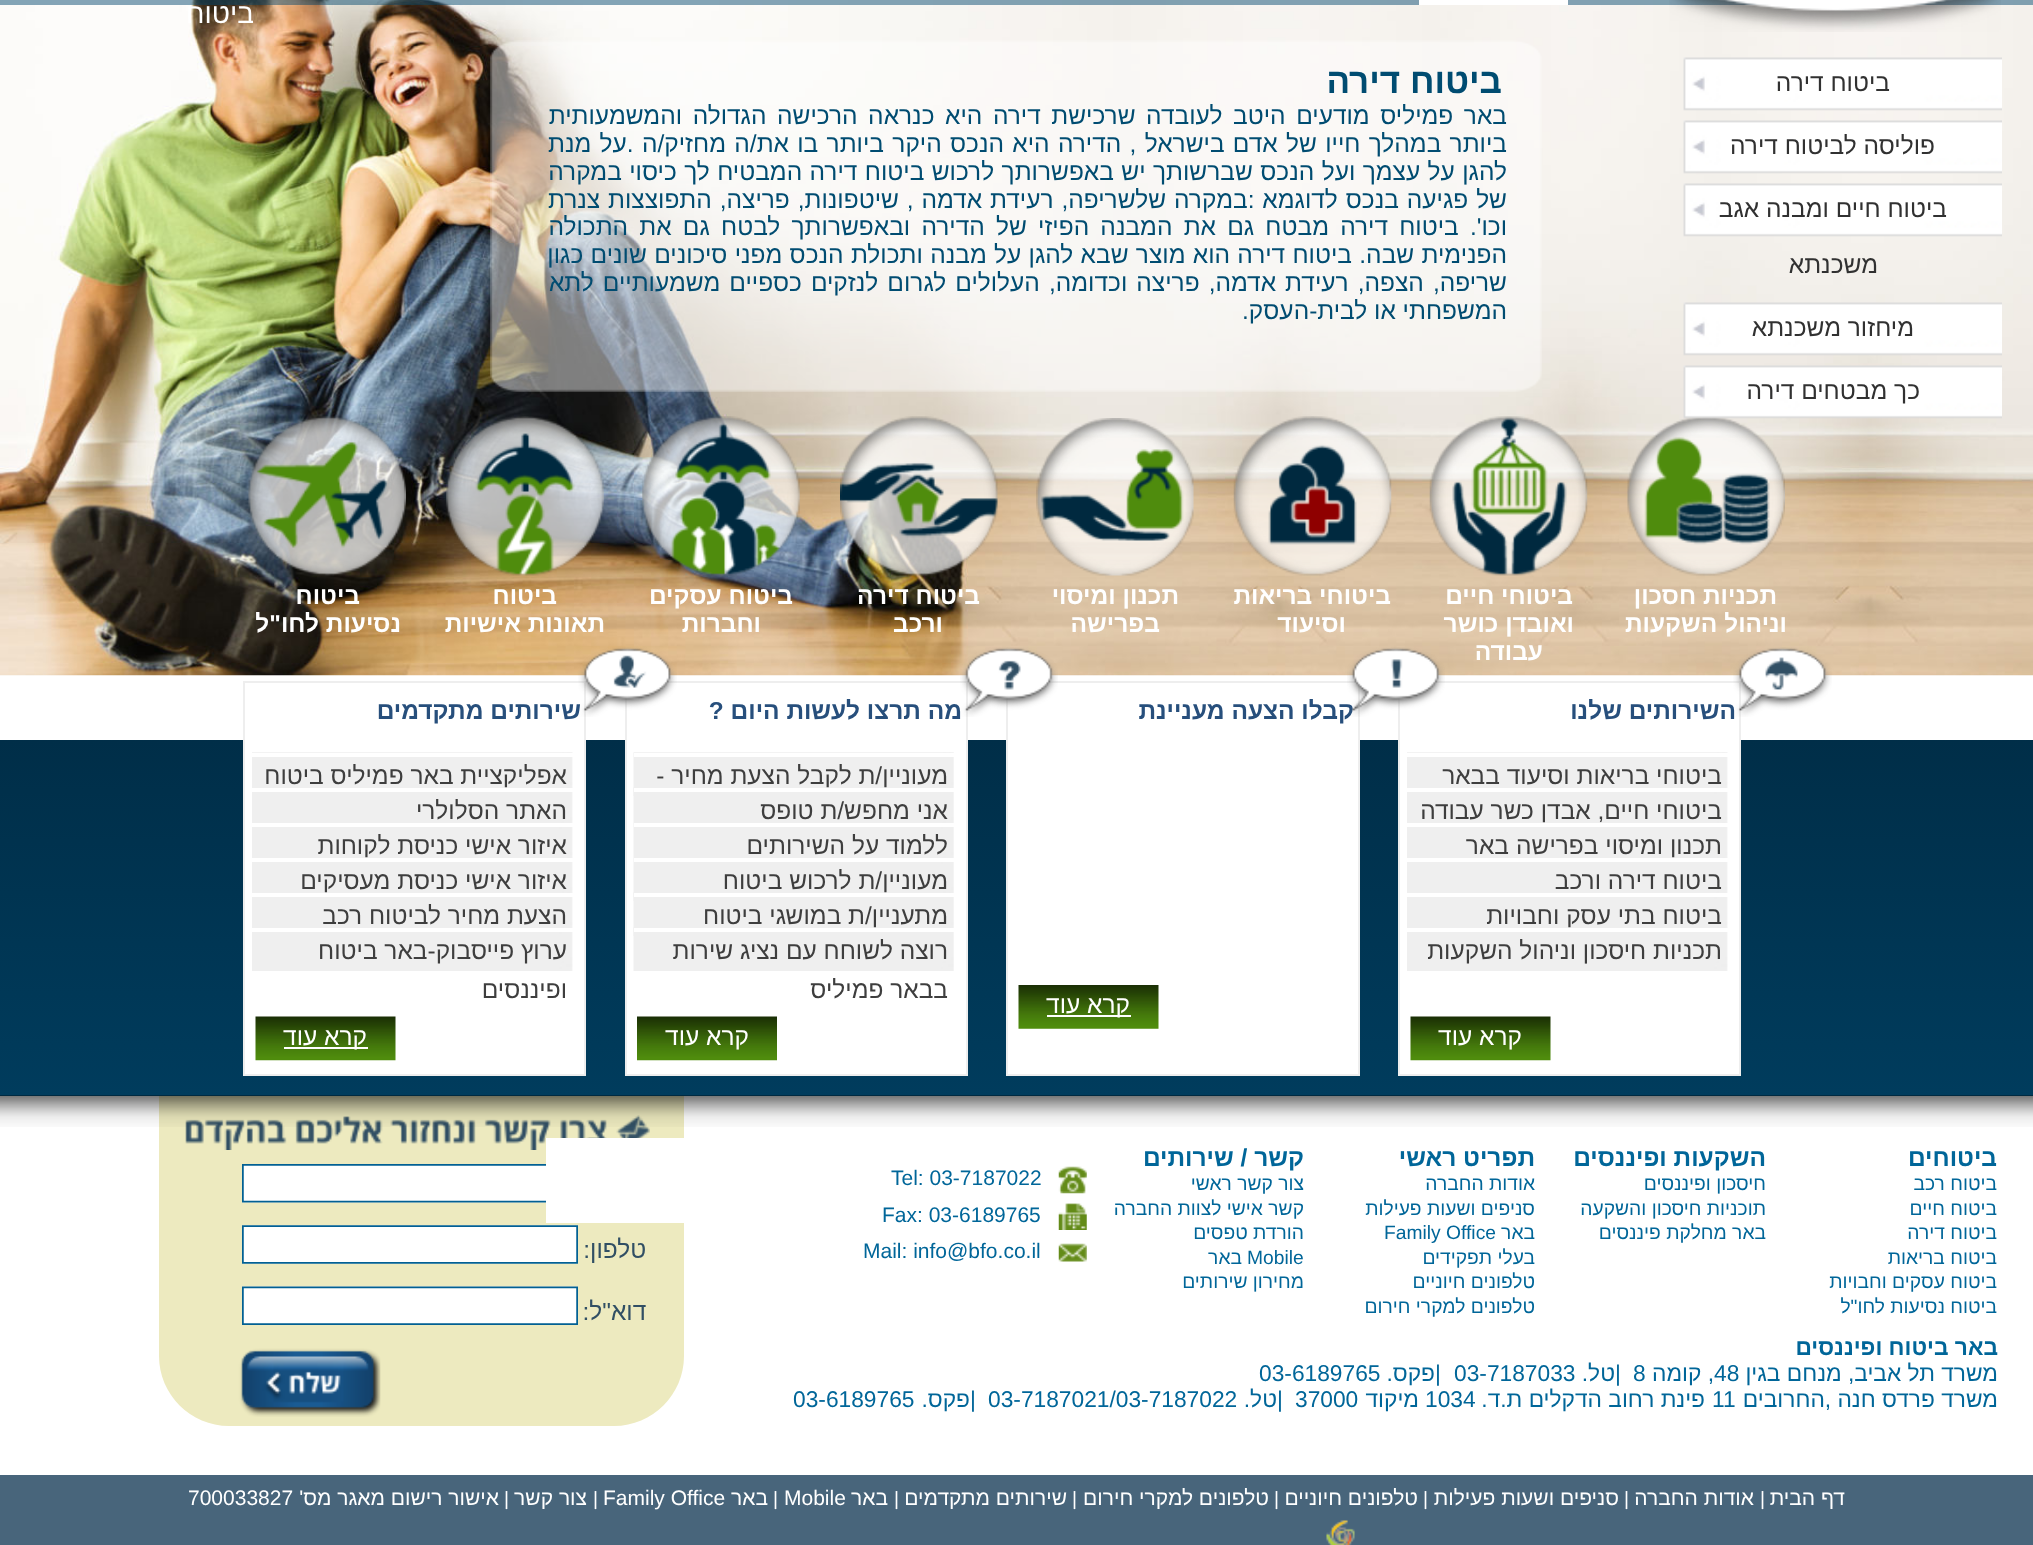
<svg xmlns="http://www.w3.org/2000/svg" width="2033" height="1545" viewBox="0 0 2033 1545">
  <style>
    .t1 { font: 28px Liberation Sans; direction: rtl; fill: #fff; }
    .t2 { font: 24.5px Liberation Sans; direction: rtl; fill: #313131; }
    .t3 { font: bold 35px Liberation Sans; direction: rtl; fill: #004c71; }
    .t4 { font: 24.5px Liberation Sans; direction: rtl; fill: #004c71; }
    .t5 { font: bold 24.5px Liberation Sans; direction: rtl; fill: #fff; }
    .t6 { font: bold 24.5px Liberation Sans; direction: rtl; fill: #274f7c; }
    .t7 { font: 24.5px Liberation Sans; direction: rtl; fill: #3e3e3e; }
    .t8 { font: 24.5px Liberation Sans; direction: rtl; fill: #fff; }
    .t9 { font: bold 24.5px Liberation Sans; direction: rtl; fill: #069; }
    .t10 { font: 19.25px Liberation Sans; direction: rtl; fill: #069; }
    .t11 { font: 19.25px Liberation Sans; fill: #069; }
    .t12 { font: 21px Liberation Sans; fill: #069; }
    .t13 { font: bold 22.75px Liberation Sans; direction: rtl; fill: #069; }
    .t14 { font: 22.75px Liberation Sans; direction: rtl; fill: #069; }
    .t15 { font: 22.75px Liberation Sans; fill: #069; }
    .t16 { font: 21px Liberation Sans; direction: rtl; fill: #fff; }
    .t17 { font: 19.25px Liberation Sans; fill: #fff; }
    .t18 { font: 21px Liberation Sans; fill: #fff; }
  </style>
  <defs>
    <linearGradient id="g1" gradientUnits="userSpaceOnUse" x1="0" y1="740" x2="0" y2="1096"><stop offset="0" stop-color="#002e48"/><stop offset="1" stop-color="#003c5d"/></linearGradient>
  </defs>
  <rect width="100%" height="100%" fill="#fff"/>
  <image x="0" y="0" width="2033" height="676" href="images/1.png"/>
  <rect x="0" y="0" width="2033" height="5" fill="#00456d7a"/>
  <rect x="1419" y="0" width="149" height="5" fill="#fff"/>
  <text x="254" y="23" class="t1">ביטוח</text>
  <image x="1683" y="57" width="319" height="54" href="images/2.png"/>
  <text x="1890" y="91" class="t2">ביטוח דירה</text>
  <image x="1683" y="120" width="319" height="54" href="images/3.png"/>
  <text x="1935" y="154" class="t2">פוליסה לביטוח דירה</text>
  <image x="1683" y="183" width="319" height="54" href="images/4.png"/>
  <text x="1947" y="217" class="t2">ביטוח חיים ומבנה אגב</text>
  <text x="1878" y="273" class="t2">משכנתא</text>
  <image x="1683" y="302" width="319" height="54" href="images/5.png"/>
  <text x="1914" y="336" class="t2">מיחזור משכנתא</text>
  <image x="1627" y="417" width="158" height="159" href="images/9.png"/>
  <image x="1683" y="365" width="319" height="54" href="images/6.png"/>
  <text x="1920" y="399" class="t2">כך מבטחים דירה</text>
  <image x="1669" y="0" width="332" height="32" href="images/7.png"/>
  <image x="490" y="40" width="1052" height="352" href="images/8.png"/>
  <text x="1502" y="93" class="t3">ביטוח דירה</text>
  <text x="1507" y="124" word-spacing="3.75" class="t4">באר פמיליס מודעים היטב לעובדה שרכישת דירה היא כנראה הרכישה הגדולה והמשמעותית</text>
  <text x="1507" y="152" word-spacing="1.5" class="t4">ביותר במהלך חייו של אדם בישראל , הדירה היא הנכס היקר ביותר בו את/ה מחזיק/ה .על מנת</text>
  <text x="1507" y="180" word-spacing="0.6" class="t4">להגן על עצמך ועל הנכס שברשותך יש באפשרותך לרכוש ביטוח דירה המבטיח לך כיסוי במקרה</text>
  <text x="1507" y="208" word-spacing="1.1" class="t4">של פגיעה בנכס לדוגמא :במקרה שלשריפה, רעידת אדמה , שיטפונות, פריצה, התפוצצות צנרת</text>
  <text x="1507" y="235" word-spacing="4.4" class="t4">וכו'. ביטוח דירה מבטח גם את המבנה הפיזי של הדירה ובאפשרותך לבטח גם את התכולה</text>
  <text x="1507" y="263" word-spacing="0.5" class="t4">הפנימית שבה. ביטוח דירה הוא מוצר שבא להגן על מבנה ותכולת הנכס מפני סיכונים שונים כגון</text>
  <text x="1507" y="291" word-spacing="2.25" class="t4">שריפה, הצפה, רעידת אדמה, פריצה וכדומה, העלולים לגרום לנזקים כספיים משמעותיים לתא</text>
  <text x="1507" y="319" class="t4">המשפחתי או לבית-העסק.</text>
  <text x="1777" y="604" class="t5">תכניות חסכון</text>
  <text x="1787" y="632" class="t5">וניהול השקעות</text>
  <image x="1429" y="416" width="159" height="160" href="images/10.png"/>
  <text x="1573" y="604" class="t5">ביטוחי חיים</text>
  <text x="1574" y="632" class="t5">ואובדן כושר</text>
  <text x="1543" y="660" class="t5">עבודה</text>
  <image x="1233" y="416" width="159" height="160" href="images/11.png"/>
  <text x="1391" y="604" class="t5">ביטוחי בריאות</text>
  <text x="1346" y="632" class="t5">וסיעוד</text>
  <image x="1036" y="418" width="158" height="158" href="images/12.png"/>
  <text x="1179" y="604" class="t5">תכנון ומיסוי</text>
  <text x="1160" y="632" class="t5">בפרישה</text>
  <image x="840" y="416" width="158" height="160" href="images/13.png"/>
  <text x="980" y="604" class="t5">ביטוח דירה</text>
  <text x="943" y="632" class="t5">ורכב</text>
  <image x="642" y="416" width="158" height="160" href="images/14.png"/>
  <text x="793" y="604" class="t5">ביטוח עסקים</text>
  <text x="761" y="632" class="t5">וחברות</text>
  <image x="446" y="416" width="158" height="160" href="images/15.png"/>
  <text x="557" y="604" class="t5">ביטוח</text>
  <text x="605" y="632" class="t5">תאונות אישיות</text>
  <image x="248" y="416" width="158" height="160" href="images/16.png"/>
  <text x="360" y="604" class="t5">ביטוח</text>
  <text x="401" y="632" class="t5">נסיעות לחו"ל</text>
  <rect x="0" y="740" width="2033" height="356" fill="url(#g1)"/>
  <rect x="1400" y="740" width="339" height="334" fill="#fff"/>
  <rect x="1399" y="682" width="341" height="393" fill="none" stroke="#eee" stroke-width="2"/>
  <text x="1736" y="719" class="t6">השירותים שלנו</text>
  <image x="1733" y="647" width="99" height="70" href="images/17.png"/>
  <image x="1407" y="752" width="321" height="44" href="images/18.png"/>
  <rect x="1407" y="753" width="322" height="4" fill="#fff"/>
  <text x="1722" y="784" class="t7">ביטוחי בריאות וסיעוד בבאר</text>
  <image x="1407" y="796" width="321" height="27" href="images/19.png"/>
  <rect x="1407" y="788" width="322" height="4" fill="#fff"/>
  <text x="1722" y="819" class="t7">ביטוחי חיים, אבדן כשר עבודה</text>
  <image x="1407" y="822" width="321" height="36" href="images/20.png"/>
  <rect x="1407" y="823" width="322" height="4" fill="#fff"/>
  <text x="1722" y="854" class="t7">תכנון ומיסוי בפרישה</text>
  <text x="1509" y="854" class="t7">באר</text>
  <image x="1407" y="857" width="321" height="44" href="images/21.png"/>
  <rect x="1407" y="858" width="322" height="4" fill="#fff"/>
  <text x="1722" y="889" class="t7">ביטוח דירה ורכב</text>
  <image x="1407" y="901" width="321" height="27" href="images/19.png"/>
  <rect x="1407" y="893" width="322" height="4" fill="#fff"/>
  <text x="1722" y="924" class="t7">ביטוח בתי עסק וחבויות</text>
  <image x="1407" y="927" width="321" height="44" href="images/22.png"/>
  <rect x="1407" y="928" width="322" height="4" fill="#fff"/>
  <text x="1722" y="959" class="t7">תכניות חיסכון וניהול השקעות</text>
  <image x="1410" y="1016" width="141" height="45" href="images/23.png"/>
  <text x="1522" y="1045" class="t8">קרא עוד</text>
  <rect x="1008" y="740" width="350" height="334" fill="#fff"/>
  <rect x="1007" y="682" width="352" height="393" fill="none" stroke="#eee" stroke-width="2"/>
  <text x="1354" y="719" class="t6">קבלו הצעה מעניינת</text>
  <image x="1347" y="647" width="98" height="70" href="images/24.png"/>
  <image x="1018" y="985" width="141" height="44" href="images/25.png"/>
  <rect x="1047" y="1015" width="84" height="2" fill="#fff"/>
  <text x="1130" y="1013" class="t8">קרא עוד</text>
  <rect x="627" y="740" width="339" height="334" fill="#fff"/>
  <rect x="626" y="682" width="341" height="393" fill="none" stroke="#eee" stroke-width="2"/>
  <text x="962" y="719" class="t6">מה תרצו לעשות היום ?</text>
  <image x="960" y="647" width="98" height="70" href="images/26.png"/>
  <image x="633" y="752" width="321" height="44" href="images/27.png"/>
  <rect x="634" y="753" width="322" height="4" fill="#fff"/>
  <text x="948" y="784" class="t7">מעוניין/ת לקבל הצעת מחיר -</text>
  <image x="633" y="787" width="321" height="44" href="images/28.png"/>
  <rect x="634" y="788" width="322" height="4" fill="#fff"/>
  <text x="948" y="819" class="t7">אני מחפש/ת טופס</text>
  <image x="633" y="831" width="321" height="35" href="images/29.png"/>
  <rect x="634" y="823" width="322" height="4" fill="#fff"/>
  <text x="948" y="854" class="t7">ללמוד על השירותים</text>
  <image x="633" y="866" width="321" height="35" href="images/29.png"/>
  <rect x="634" y="858" width="322" height="4" fill="#fff"/>
  <text x="948" y="889" class="t7">מעוניין/ת לרכוש ביטוח</text>
  <image x="633" y="892" width="321" height="44" href="images/30.png"/>
  <rect x="634" y="893" width="322" height="4" fill="#fff"/>
  <text x="948" y="924" class="t7">מתעניין/ת במושגי ביטוח</text>
  <image x="633" y="927" width="321" height="44" href="images/31.png"/>
  <rect x="634" y="928" width="322" height="4" fill="#fff"/>
  <text x="948" y="959" class="t7">רוצה לשוחח עם נציג שירות</text>
  <text x="948" y="998" class="t7">בבאר פמיליס</text>
  <image x="637" y="1016" width="140" height="45" href="images/32.png"/>
  <text x="749" y="1045" class="t8">קרא עוד</text>
  <rect x="245" y="740" width="339" height="334" fill="#fff"/>
  <rect x="244" y="682" width="341" height="393" fill="none" stroke="#eee" stroke-width="2"/>
  <text x="581" y="719" class="t6">שירותים מתקדמים</text>
  <image x="578" y="647" width="99" height="70" href="images/33.png"/>
  <image x="252" y="752" width="321" height="36" href="images/34.png"/>
  <rect x="252" y="753" width="322" height="4" fill="#fff"/>
  <text x="567" y="784" class="t7">אפליקציית באר פמיליס ביטוח</text>
  <image x="252" y="787" width="321" height="44" href="images/35.png"/>
  <rect x="252" y="788" width="322" height="4" fill="#fff"/>
  <text x="567" y="819" class="t7">האתר הסלולרי</text>
  <image x="252" y="831" width="321" height="27" href="images/19.png"/>
  <rect x="252" y="823" width="322" height="4" fill="#fff"/>
  <text x="567" y="854" class="t7">איזור אישי כניסת לקוחות</text>
  <image x="252" y="857" width="321" height="36" href="images/36.png"/>
  <rect x="252" y="858" width="322" height="4" fill="#fff"/>
  <text x="567" y="889" class="t7">איזור אישי כניסת מעסיקים</text>
  <image x="252" y="892" width="321" height="44" href="images/37.png"/>
  <rect x="252" y="893" width="322" height="4" fill="#fff"/>
  <text x="567" y="924" class="t7">הצעת מחיר לביטוח רכב</text>
  <image x="252" y="936" width="321" height="35" href="images/38.png"/>
  <rect x="252" y="928" width="322" height="4" fill="#fff"/>
  <text x="567" y="959" class="t7">ערוץ פייסבוק-באר ביטוח</text>
  <text x="567" y="998" class="t7">ופיננסים</text>
  <image x="255" y="1016" width="141" height="45" href="images/39.png"/>
  <rect x="284" y="1047" width="84" height="2" fill="#fff"/>
  <text x="367" y="1045" class="t8">קרא עוד</text>
  <path d="M159 1096H684V1356C684 1394.5 652.5 1426 614 1426H229C190.5 1426 159 1394.5 159 1356Z" fill="#edeabf"/>
  <image x="185" y="1115" width="465" height="302" href="images/44.png"/>
  <image x="0" y="1095" width="2033" height="32" href="images/40.png"/>
  <rect x="546" y="1138" width="138" height="85" fill="#fff"/>
  <text x="1997" y="1166" class="t9">ביטוחים</text>
  <text x="1997" y="1190" class="t10">ביטוח רכב</text>
  <text x="1997" y="1215" class="t10">ביטוח חיים</text>
  <text x="1997" y="1239" class="t10">ביטוח דירה</text>
  <text x="1997" y="1264" class="t10">ביטוח בריאות</text>
  <text x="1997" y="1288" class="t10">ביטוח עסקים וחבויות</text>
  <text x="1997" y="1313" class="t10">ביטוח נסיעות לחו"ל</text>
  <text x="1766" y="1166" class="t9">השקעות ופיננסים</text>
  <text x="1766" y="1190" class="t10">חיסכון ופיננסים</text>
  <text x="1766" y="1215" class="t10">תוכניות חיסכון והשקעה</text>
  <text x="1766" y="1239" class="t10">באר מחלקת פיננסים</text>
  <text x="1535" y="1166" class="t9">תפריט ראשי</text>
  <text x="1535" y="1190" class="t10">אודות החברה</text>
  <text x="1535" y="1215" class="t10">סניפים ושעות פעילות</text>
  <text x="1535" y="1239" class="t10">באר</text>
  <text x="1384" y="1239" class="t11">Family Office</text>
  <text x="1535" y="1264" class="t10">בעלי תפקידים</text>
  <text x="1535" y="1288" class="t10">טלפונים חיוניים</text>
  <text x="1535" y="1313" class="t10">טלפונים למקרי חירום</text>
  <text x="1304" y="1166" class="t9">קשר / שירותים</text>
  <text x="1304" y="1190" class="t10">צור קשר ראשי</text>
  <text x="1304" y="1215" class="t10">קשר אישי לצוות החברה</text>
  <text x="1304" y="1239" class="t10">הורדת טפסים</text>
  <text x="1247" y="1264" class="t11">Mobile</text>
  <text x="1242" y="1264" class="t10">באר</text>
  <text x="1304" y="1288" class="t10">מחירון שירותים</text>
  <image x="1058" y="1166" width="29" height="28" href="images/41.png"/>
  <text x="891" y="1185" class="t12">Tel: 03-7187022</text>
  <image x="1058" y="1203" width="29" height="27" href="images/42.png"/>
  <text x="882" y="1222" class="t12">Fax: 03-6189765</text>
  <image x="1058" y="1243" width="29" height="19" href="images/43.png"/>
  <text x="863" y="1258" class="t12">Mail: info@bfo.co.il</text>
  <text x="1998" y="1355" class="t13">באר ביטוח ופיננסים</text>
  <text x="1998" y="1381" class="t14">משרד תל אביב, מנחם בגין</text>
  <text x="1714" y="1381" class="t15">48</text>
  <text x="1714" y="1381" class="t14">, קומה</text>
  <text x="1633" y="1381" class="t15">8</text>
  <text x="1615" y="1381" class="t15">|</text>
  <text x="1615" y="1381" class="t14">טל.</text>
  <text x="1454" y="1381" class="t15">03-7187033</text>
  <text x="1435" y="1381" class="t15">|</text>
  <text x="1435" y="1381" class="t14">פקס.</text>
  <text x="1259" y="1381" class="t15">03-6189765</text>
  <text x="1998" y="1407" class="t14">משרד פרדס חנה ,החרובים</text>
  <text x="1712" y="1407" class="t15">11</text>
  <text x="1705" y="1407" class="t14">פינת רחוב הדקלים ת.ד.</text>
  <text x="1425" y="1407" class="t15">1034</text>
  <text x="1419" y="1407" class="t14">מיקוד</text>
  <text x="1295" y="1407" class="t15">37000</text>
  <text x="1277" y="1407" class="t15">|</text>
  <text x="1277" y="1407" class="t14">טל.</text>
  <text x="988" y="1407" class="t15">03-7187021/03-7187022</text>
  <text x="970" y="1407" class="t15">|</text>
  <text x="970" y="1407" class="t14">פקס.</text>
  <text x="793" y="1407" class="t15">03-6189765</text>
  <rect x="0" y="1475" width="2033" height="70" fill="#48657b"/>
  <text x="1845" y="1505" class="t16">דף הבית</text>
  <text x="1760" y="1505" class="t17">|</text>
  <text x="1754" y="1505" class="t16">אודות החברה</text>
  <text x="1624" y="1505" class="t17">|</text>
  <text x="1619" y="1505" class="t16">סניפים ושעות פעילות</text>
  <text x="1423" y="1505" class="t17">|</text>
  <text x="1418" y="1505" class="t16">טלפונים חיוניים</text>
  <text x="1274" y="1505" class="t17">|</text>
  <text x="1269" y="1505" class="t16">טלפונים למקרי חירום</text>
  <text x="1072" y="1505" class="t17">|</text>
  <text x="1067" y="1505" class="t16">שירותים מתקדמים</text>
  <text x="894" y="1505" class="t17">|</text>
  <text x="888" y="1505" class="t16">באר</text>
  <text x="784" y="1505" class="t18">Mobile</text>
  <text x="773" y="1505" class="t17">|</text>
  <text x="768" y="1505" class="t16">באר</text>
  <text x="603" y="1505" class="t18">Family Office</text>
  <text x="593" y="1505" class="t17">|</text>
  <text x="587" y="1505" class="t16">צור קשר</text>
  <text x="504" y="1505" class="t17">|</text>
  <text x="499" y="1505" class="t16">אישור רישום מאגר מס'</text>
  <text x="188" y="1505" class="t18">700033827</text>
  <image x="1326" y="1520" width="29" height="25" href="images/45.png"/>
</svg>
